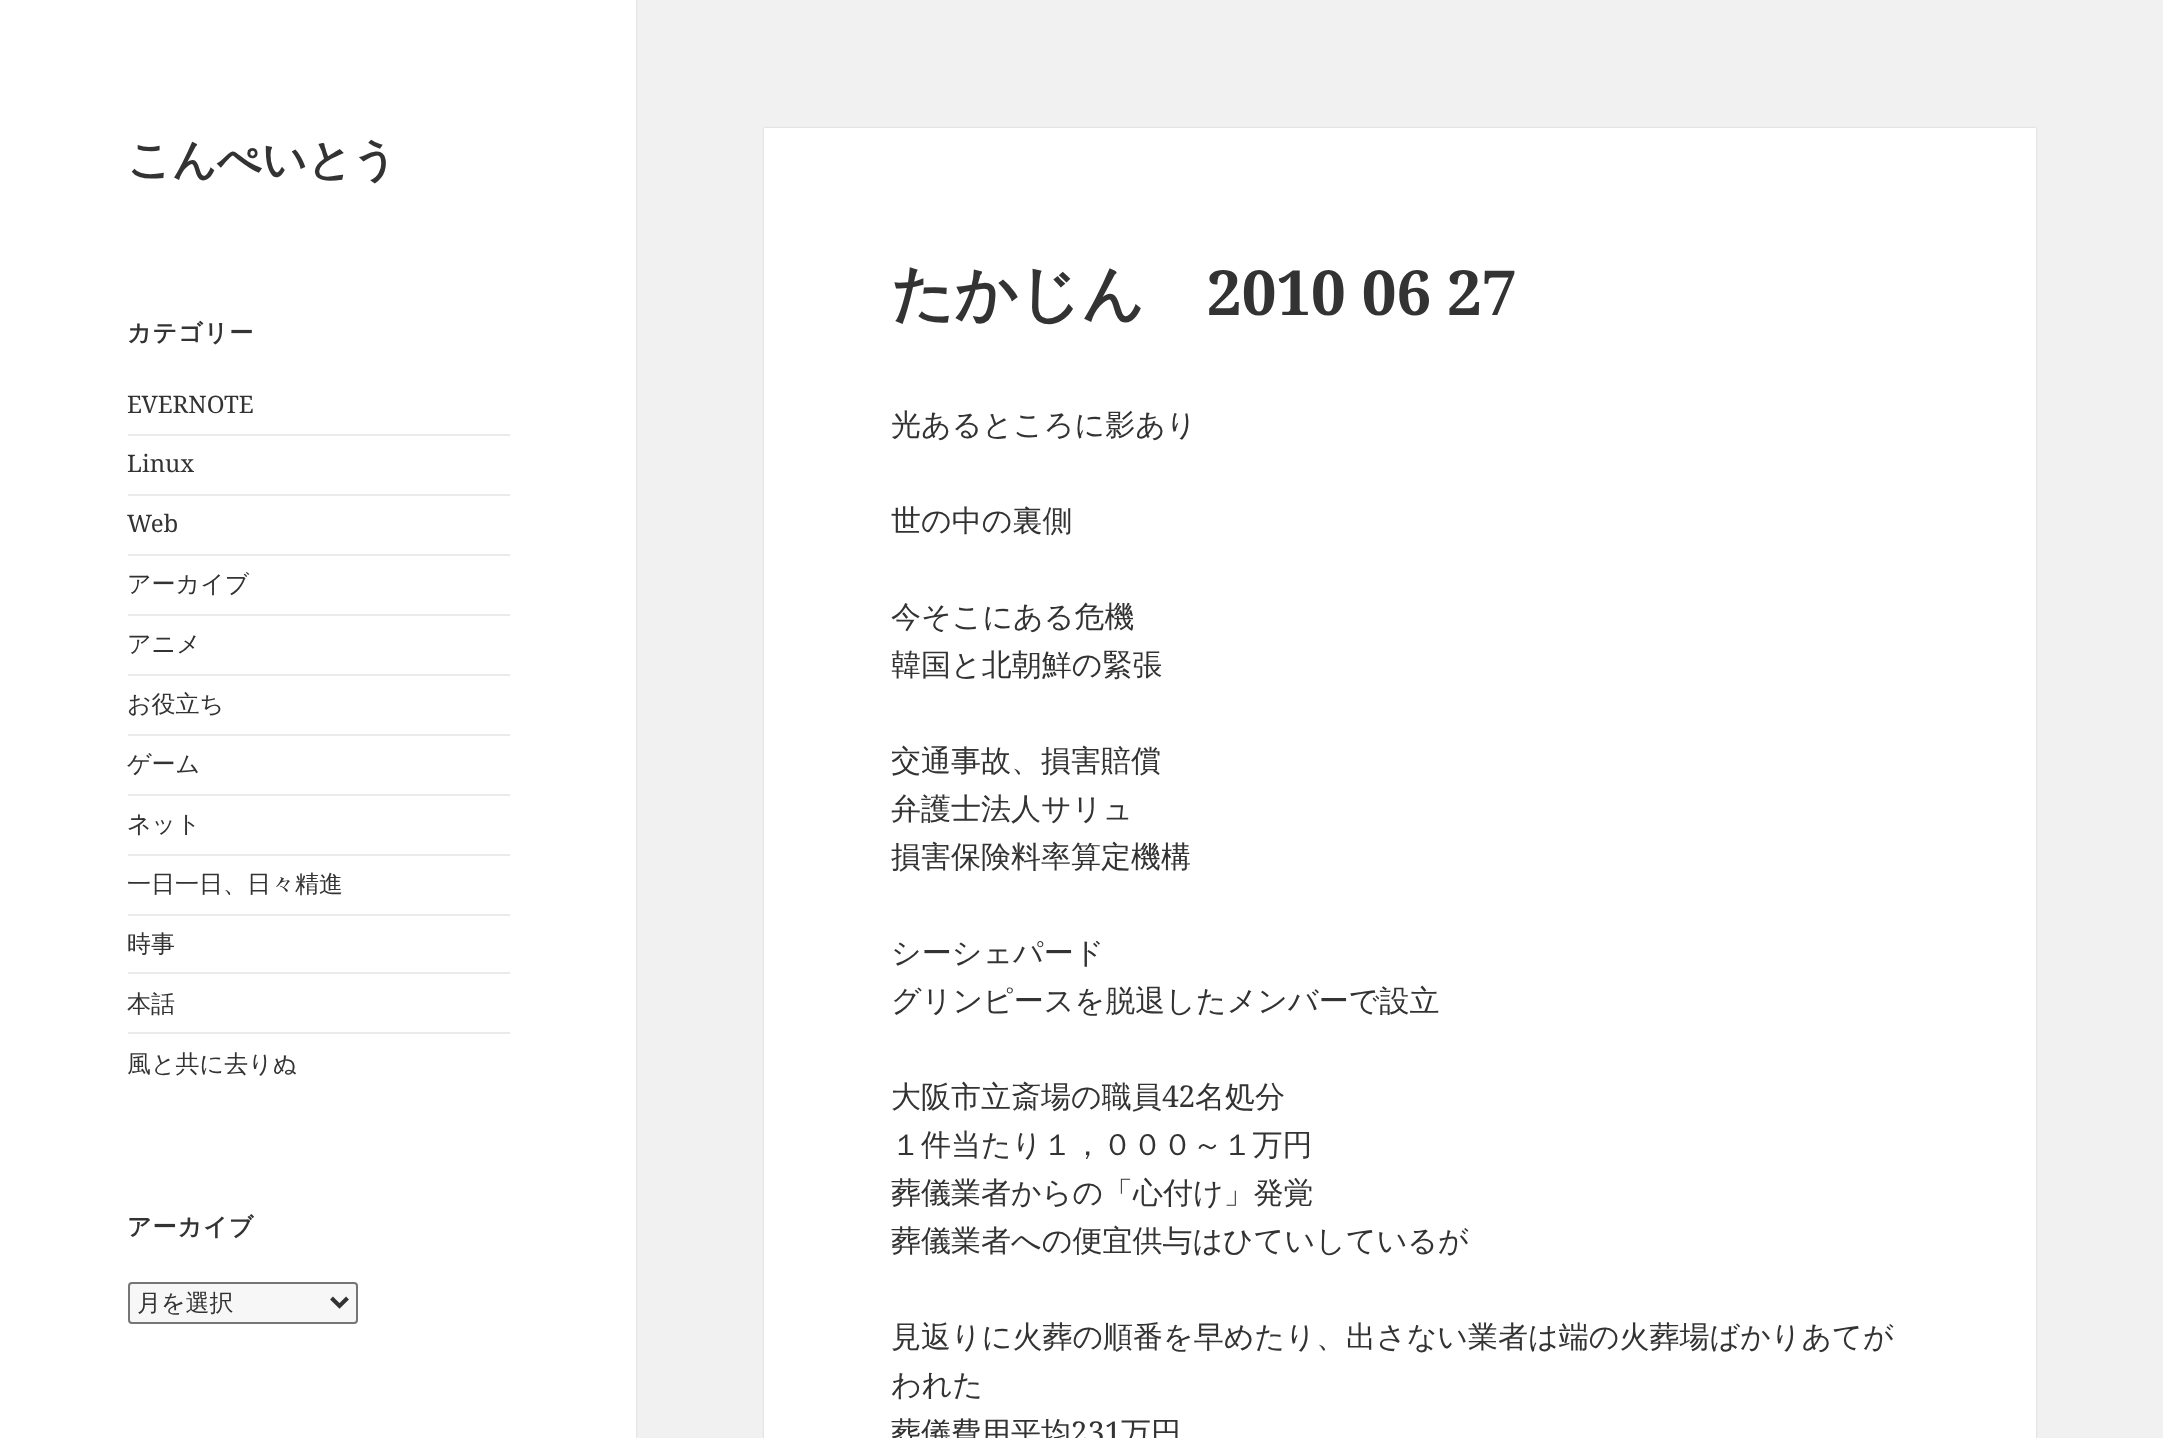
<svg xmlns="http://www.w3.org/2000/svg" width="2163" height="1438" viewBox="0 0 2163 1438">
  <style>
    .t1 { font: bold 44px WenQuanYi Zen Hei; fill: #333; }
    .t2 { font: bold 24px WenQuanYi Zen Hei; letter-spacing: 1px; fill: #333; }
    .t3 { font: 24px Noto Serif; fill: #333; }
    .t4 { font: 500 24px WenQuanYi Zen Hei; fill: #333; }
    .t5 { font: bold 62px WenQuanYi Zen Hei; fill: #333; }
    .t6 { font: bold 62px Noto Serif; fill: #333; }
    .t7 { font: 500 30px WenQuanYi Zen Hei; fill: #333; }
    .t8 { font: 30px Noto Serif; fill: #333; }
  </style>
  <rect width="100%" height="100%" fill="#f1f1f1"/>
  <rect x="0" y="0" width="636" height="1438" fill="#00000026" filter="blur(1px)"/>
  <rect x="0" y="0" width="636" height="1438" fill="#fff"/>
  <text x="127" y="175" class="t1">こんぺいとう</text>
  <text x="127" y="341" class="t2">カテゴリー</text>
  <text x="127" y="413" class="t3">EVERNOTE</text>
  <rect x="128" y="434" width="382" height="2" fill="#ebebeb"/>
  <text x="127" y="472" class="t3">Linux</text>
  <rect x="128" y="494" width="382" height="2" fill="#ebebeb"/>
  <text x="127" y="532" class="t3">Web</text>
  <rect x="128" y="554" width="382" height="2" fill="#ebebeb"/>
  <text x="127" y="592" class="t4">アーカイブ</text>
  <rect x="128" y="614" width="382" height="2" fill="#ebebeb"/>
  <text x="127" y="652" class="t4">アニメ</text>
  <rect x="128" y="674" width="382" height="2" fill="#ebebeb"/>
  <text x="127" y="712" class="t4">お役立ち</text>
  <rect x="128" y="734" width="382" height="2" fill="#ebebeb"/>
  <text x="127" y="772" class="t4">ゲーム</text>
  <rect x="128" y="794" width="382" height="2" fill="#ebebeb"/>
  <text x="127" y="832" class="t4">ネット</text>
  <rect x="128" y="854" width="382" height="2" fill="#ebebeb"/>
  <text x="127" y="892" class="t4">一日一日、日々精進</text>
  <rect x="128" y="914" width="382" height="2" fill="#ebebeb"/>
  <text x="127" y="952" class="t4">時事</text>
  <rect x="128" y="972" width="382" height="2" fill="#ebebeb"/>
  <text x="127" y="1012" class="t4">本話</text>
  <rect x="128" y="1032" width="382" height="2" fill="#ebebeb"/>
  <text x="127" y="1072" class="t4">風と共に去りぬ</text>
  <text x="127" y="1235" class="t2">アーカイブ</text>
  <rect x="129" y="1283" width="228" height="40" rx="3" fill="#f7f7f7" stroke="#767676" stroke-width="2"/>
  <path d="M331.5 1298L339.5 1306L347.5 1298" fill="none" stroke="#333" stroke-width="4"/>
  <text x="137" y="1311" class="t4">月を選択</text>
  <rect x="764" y="128" width="1272" height="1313" fill="#00000026" filter="blur(1px)"/>
  <rect x="764" y="128" width="1272" height="1310" fill="#fff"/>
  <text x="891" y="315" class="t5">たかじん</text>
  <text x="1207" y="315" class="t6">2010 06 27</text>
  <text x="891" y="435" class="t7">光あるところに影あり</text>
  <text x="891" y="531" class="t7">世の中の裏側</text>
  <text x="891" y="627" class="t7">今そこにある危機</text>
  <text x="891" y="675" class="t7">韓国と北朝鮮の緊張</text>
  <text x="891" y="771" class="t7">交通事故、損害賠償</text>
  <text x="891" y="819" class="t7">弁護士法人サリュ</text>
  <text x="891" y="867" class="t7">損害保険料率算定機構</text>
  <text x="891" y="963" class="t7">シーシェパード</text>
  <text x="891" y="1011" class="t7">グリンピースを脱退したメンバーで設立</text>
  <text x="891" y="1107" class="t7">大阪市立斎場の職員</text>
  <text x="1162" y="1107" class="t8">42</text>
  <text x="1195" y="1107" class="t7">名処分</text>
  <text x="891" y="1155" class="t7">１件当たり１，０００～１万円</text>
  <text x="891" y="1203" class="t7">葬儀業者からの「心付け」発覚</text>
  <text x="891" y="1251" class="t7">葬儀業者への便宜供与はひていしているが</text>
  <text x="891" y="1347" class="t7">見返りに火葬の順番を早めたり、出さない業者は端の火葬場ばかりあてが</text>
  <text x="891" y="1395" class="t7">われた</text>
  <text x="891" y="1443" class="t7">葬儀費用平均</text>
  <text x="1071" y="1443" class="t8">231</text>
  <text x="1121" y="1443" class="t7">万円</text>
</svg>
